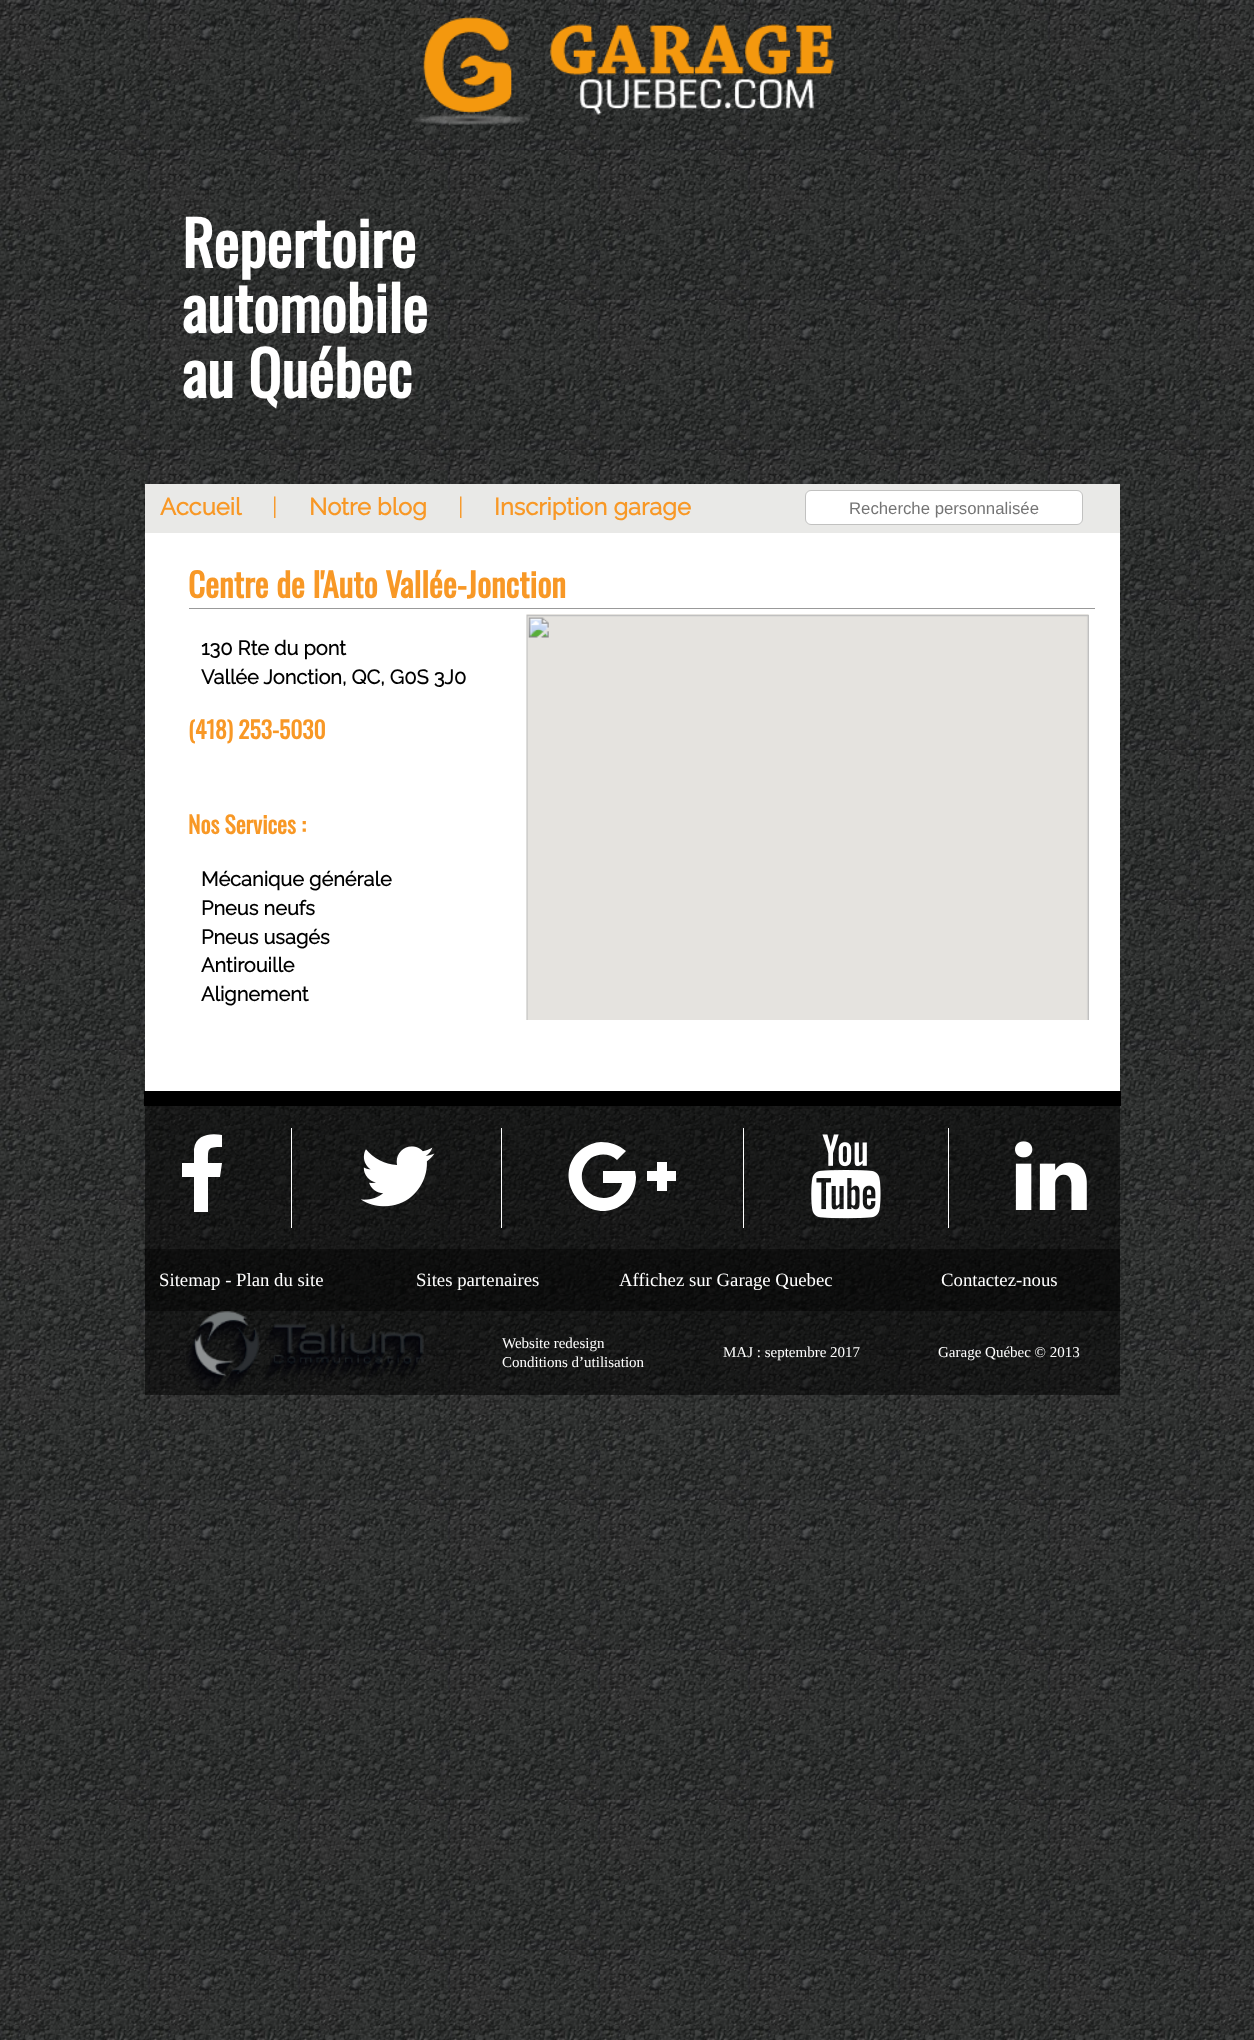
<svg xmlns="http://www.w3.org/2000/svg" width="1254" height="2040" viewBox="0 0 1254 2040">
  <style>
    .t1 { font: bold 61.25px Oswald; fill: #fff; }
    .t2 { font: bold 23.75px Raleway; fill: #f89826; }
    .t3 { font: 100 23.75px Raleway; fill: #f89826; }
    .t4 { font: 16.75px Liberation Sans; fill: #757575; }
    .t5 { font: bold 33.25px Oswald; fill: #f89826; }
    .t6 { font: bold 20px Raleway; fill: #000; }
    .t7 { font: bold 23.5px Oswald; fill: #f89826; }
    .t8 { font: 18.75px Liberation Serif; fill: #fff; }
    .t9 { font: 15px Liberation Serif; fill: #fff; }
  </style>
  <rect width="100%" height="100%" fill="#fff"/>
  <image x="0" y="0" width="1254" height="2040" href="images/1.png"/>
  <image x="409" y="16" width="425" height="109" href="images/2.png"/>
  <text x="182" y="268" class="t1">Repertoire</text>
  <text x="182" y="333" class="t1">automobile</text>
  <text x="182" y="398" class="t1">au Québec</text>
  <rect x="145" y="484" width="975" height="49" fill="#e9e9e7"/>
  <text x="160" y="515" class="t2">Accueil</text>
  <text x="272" y="515" class="t3">|</text>
  <text x="309" y="515" class="t2">Notre blog</text>
  <text x="458" y="515" class="t3">|</text>
  <text x="494" y="515" class="t2">Inscription garage</text>
  <rect x="805.5" y="490.5" width="277" height="34" rx="5.5" fill="#fff" stroke="#c1c1c0"/>
  <text x="849" y="514" class="t4">Recherche personnalisée</text>
  <rect x="145" y="533" width="975" height="558" fill="#fff"/>
  <rect x="189" y="608" width="906" height="1" fill="#999"/>
  <text x="188" y="598" class="t5">Centre de l'Auto Vallée-Jonction</text>
  <text x="201" y="655" class="t6">130 Rte du pont</text>
  <text x="201" y="684" class="t6">Vallée Jonction, QC, G0S 3J0</text>
  <image x="526" y="614" width="563" height="406" href="images/3.png"/>
  <text x="188" y="739" class="t7">(418) 253-5030</text>
  <text x="188" y="834" class="t7">Nos Services :</text>
  <text x="201" y="886" class="t6">Mécanique générale</text>
  <text x="201" y="915" class="t6">Pneus neufs</text>
  <text x="201" y="944" class="t6">Pneus usagés</text>
  <text x="201" y="972" class="t6">Antirouille</text>
  <text x="201" y="1001" class="t6">Alignement</text>
  <rect x="144" y="1091" width="977" height="15" fill="#000"/>
  <rect x="145" y="1106" width="975" height="143" fill="#00000080"/>
  <path d="M222 1135V1147C207 1147 208 1148 208 1163H222L220 1177H208V1212H194V1177H182V1163H194V1149C196 1134 211 1133 222 1135Z" fill="#fff"/>
  <rect x="291" y="1128" width="1" height="100" fill="#fff"/>
  <image x="361" y="1146" width="74" height="61" href="images/4.png"/>
  <rect x="501" y="1128" width="1" height="100" fill="#fff"/>
  <path d="M636 1177C636 1195 624 1209 605 1211C572 1212 555 1169 582 1149C588 1145 595 1142 601 1142C610 1142 619 1145 626 1151L617 1160C610 1153 599 1153 591 1158C586 1162 583 1167 582 1173C579 1201 618 1207 622 1183H603V1171H635ZM676 1171V1181H667V1191H657V1181H647V1171H657V1162H667V1171Z" fill="#fff"/>
  <rect x="743" y="1128" width="1" height="100" fill="#fff"/>
  <image x="811" y="1134" width="70" height="85" href="images/5.png"/>
  <rect x="948" y="1128" width="1" height="100" fill="#fff"/>
  <image x="1015" y="1141" width="72" height="69" href="images/6.png"/>
  <rect x="145" y="1249" width="975" height="62" fill="#000000b3"/>
  <text x="159" y="1286" class="t8">Sitemap - Plan du site</text>
  <text x="416" y="1286" class="t8">Sites partenaires</text>
  <text x="619" y="1286" class="t8">Affichez sur Garage Quebec</text>
  <text x="941" y="1286" class="t8">Contactez-nous</text>
  <rect x="145" y="1311" width="975" height="84" fill="#00000080"/>
  <image x="186" y="1311" width="238" height="80" href="images/7.png"/>
  <text x="502" y="1348" class="t9">Website redesign</text>
  <text x="502" y="1367" class="t9">Conditions d’utilisation</text>
  <text x="723" y="1357" class="t9">MAJ : septembre 2017</text>
  <text x="938" y="1357" class="t9">Garage Québec © 2013</text>
</svg>
